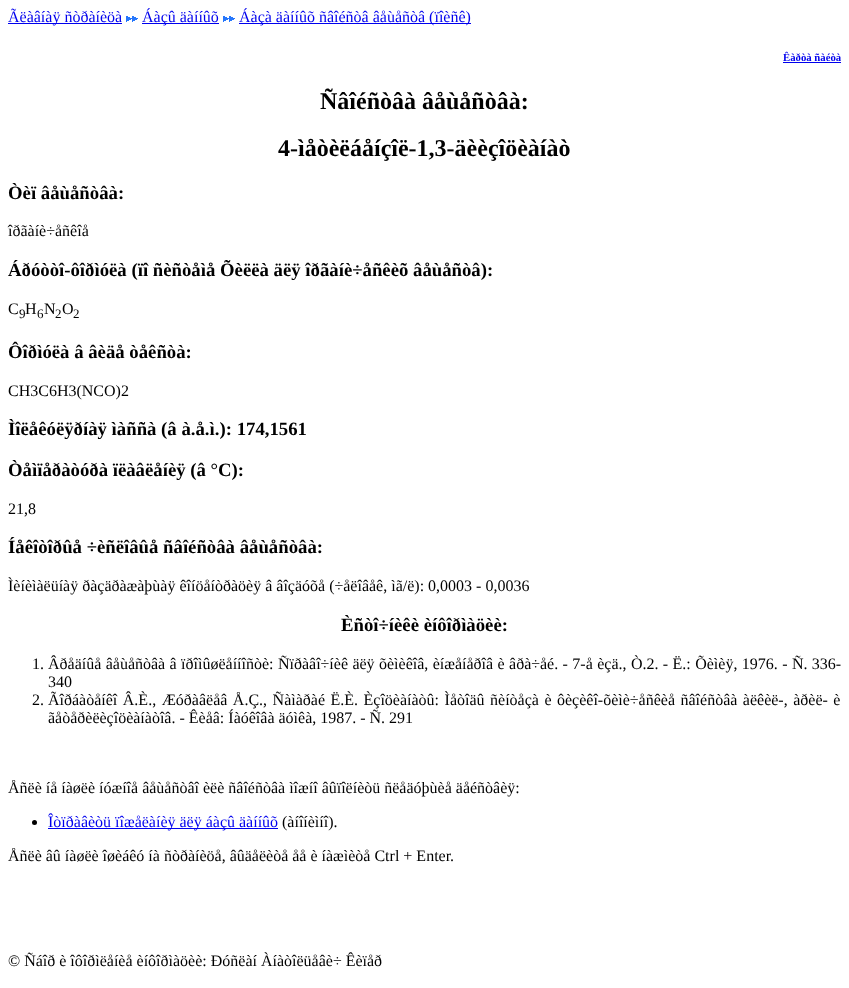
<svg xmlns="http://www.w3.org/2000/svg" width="849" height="988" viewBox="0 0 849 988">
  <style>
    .t1 { font: 16px Liberation Serif; fill: #00e; }
    .t2 { font: bold 10.75px Liberation Serif; fill: #00e; }
    .t3 { font: bold 24px Liberation Serif; fill: #000; }
    .t4 { font: bold 18.75px Liberation Serif; fill: #000; }
    .t5 { font: 16px Liberation Serif; fill: #000; }
    .t6 { font: 13px Liberation Serif; fill: #000; }
  </style>
  <rect width="100%" height="100%" fill="#fff"/>
  <rect x="8" y="23" width="114" height="1" fill="#00e"/>
  <text x="8" y="22" class="t1">Ãëàâíàÿ ñòðàíèöà</text>
  <image x="126" y="16" width="12" height="6" href="images/1.png"/>
  <rect x="142" y="23" width="77" height="1" fill="#00e"/>
  <text x="142" y="22" class="t1">Áàçû äàííûõ</text>
  <image x="223" y="16" width="12" height="6" href="images/1.png"/>
  <rect x="239" y="23" width="232" height="1" fill="#00e"/>
  <text x="239" y="22" class="t1">Áàçà äàííûõ ñâîéñòâ âåùåñòâ (ïîèñê)</text>
  <text x="783" y="61" class="t2">Êàðòà ñàéòà</text>
  <rect x="783" y="62" width="58" height="1" fill="#00e"/>
  <text x="320" y="109" class="t3">Ñâîéñòâà âåùåñòâà:</text>
  <text x="278" y="156" class="t3">4-ìåòèëáåíçîë-1,3-äèèçîöèàíàò</text>
  <text x="8" y="199" class="t4">Òèï âåùåñòâà:</text>
  <text x="8" y="236" class="t5">îðãàíè÷åñêîå</text>
  <text x="8" y="276" class="t4">Áðóòòî-ôîðìóëà (ïî ñèñòåìå Õèëëà äëÿ îðãàíè÷åñêèõ âåùåñòâ):</text>
  <text x="8" y="314" class="t5">C</text>
  <text x="19" y="318" class="t6">9</text>
  <text x="25" y="314" class="t5">H</text>
  <text x="37" y="318" class="t6">6</text>
  <text x="44" y="314" class="t5">N</text>
  <text x="55" y="318" class="t6">2</text>
  <text x="62" y="314" class="t5">O</text>
  <text x="73" y="318" class="t6">2</text>
  <text x="8" y="358" class="t4">Ôîðìóëà â âèäå òåêñòà:</text>
  <text x="8" y="396" class="t5">CH3C6H3(NCO)2</text>
  <text x="8" y="435" class="t4">Ìîëåêóëÿðíàÿ ìàññà (â à.å.ì.): 174,1561</text>
  <text x="8" y="476" class="t4">Òåìïåðàòóðà ïëàâëåíèÿ (â °C):</text>
  <text x="8" y="514" class="t5">21,8</text>
  <text x="8" y="553" class="t4">Íåêîòîðûå ÷èñëîâûå ñâîéñòâà âåùåñòâà:</text>
  <text x="8" y="591" class="t5">Ìèíèìàëüíàÿ ðàçäðàæàþùàÿ êîíöåíòðàöèÿ â âîçäóõå (÷åëîâåê, ìã/ë): 0,0003 - 0,0036</text>
  <text x="341" y="631" class="t4">Èñòî÷íèêè èíôîðìàöèè:</text>
  <text x="32" y="669" class="t5">1.</text>
  <text x="48" y="669" word-spacing="0.4" class="t5">Âðåäíûå âåùåñòâà â ïðîìûøëåííîñòè: Ñïðàâî÷íèê äëÿ õèìèêîâ, èíæåíåðîâ è âðà÷åé. - 7-å èçä., Ò.2. - Ë.: Õèìèÿ, 1976. - Ñ. 336-</text>
  <text x="48" y="687" class="t5">340</text>
  <text x="32" y="705" class="t5">2.</text>
  <text x="48" y="705" word-spacing="1.5" class="t5">Ãîðáàòåíêî Â.È., Æóðàâëåâ Å.Ç., Ñàìàðàé Ë.È. Èçîöèàíàòû: Ìåòîäû ñèíòåçà è ôèçèêî-õèìè÷åñêèå ñâîéñòâà àëêèë-, àðèë- è</text>
  <text x="48" y="723" class="t5">ãåòåðèëèçîöèàíàòîâ. - Êèåâ: Íàóêîâà äóìêà, 1987. - Ñ. 291</text>
  <text x="8" y="793" class="t5">Åñëè íå íàøëè íóæíîå âåùåñòâî èëè ñâîéñòâà ìîæíî âûïîëíèòü ñëåäóþùèå äåéñòâèÿ:</text>
  <circle cx="34.5" cy="822.5" r="2.5" fill="#000"/>
  <rect x="48" y="828" width="230" height="1" fill="#00e"/>
  <text x="48" y="827" class="t1">Îòïðàâèòü ïîæåëàíèÿ äëÿ áàçû äàííûõ</text>
  <text x="282" y="827" class="t5">(àíîíèìíî).</text>
  <text x="8" y="861" class="t5">Åñëè âû íàøëè îøèáêó íà ñòðàíèöå, âûäåëèòå åå è íàæìèòå Ctrl + Enter.</text>
  <text x="8" y="966" class="t5">© Ñáîð è îôîðìëåíèå èíôîðìàöèè: Ðóñëàí Àíàòîëüåâè÷ Êèïåð</text>
</svg>
